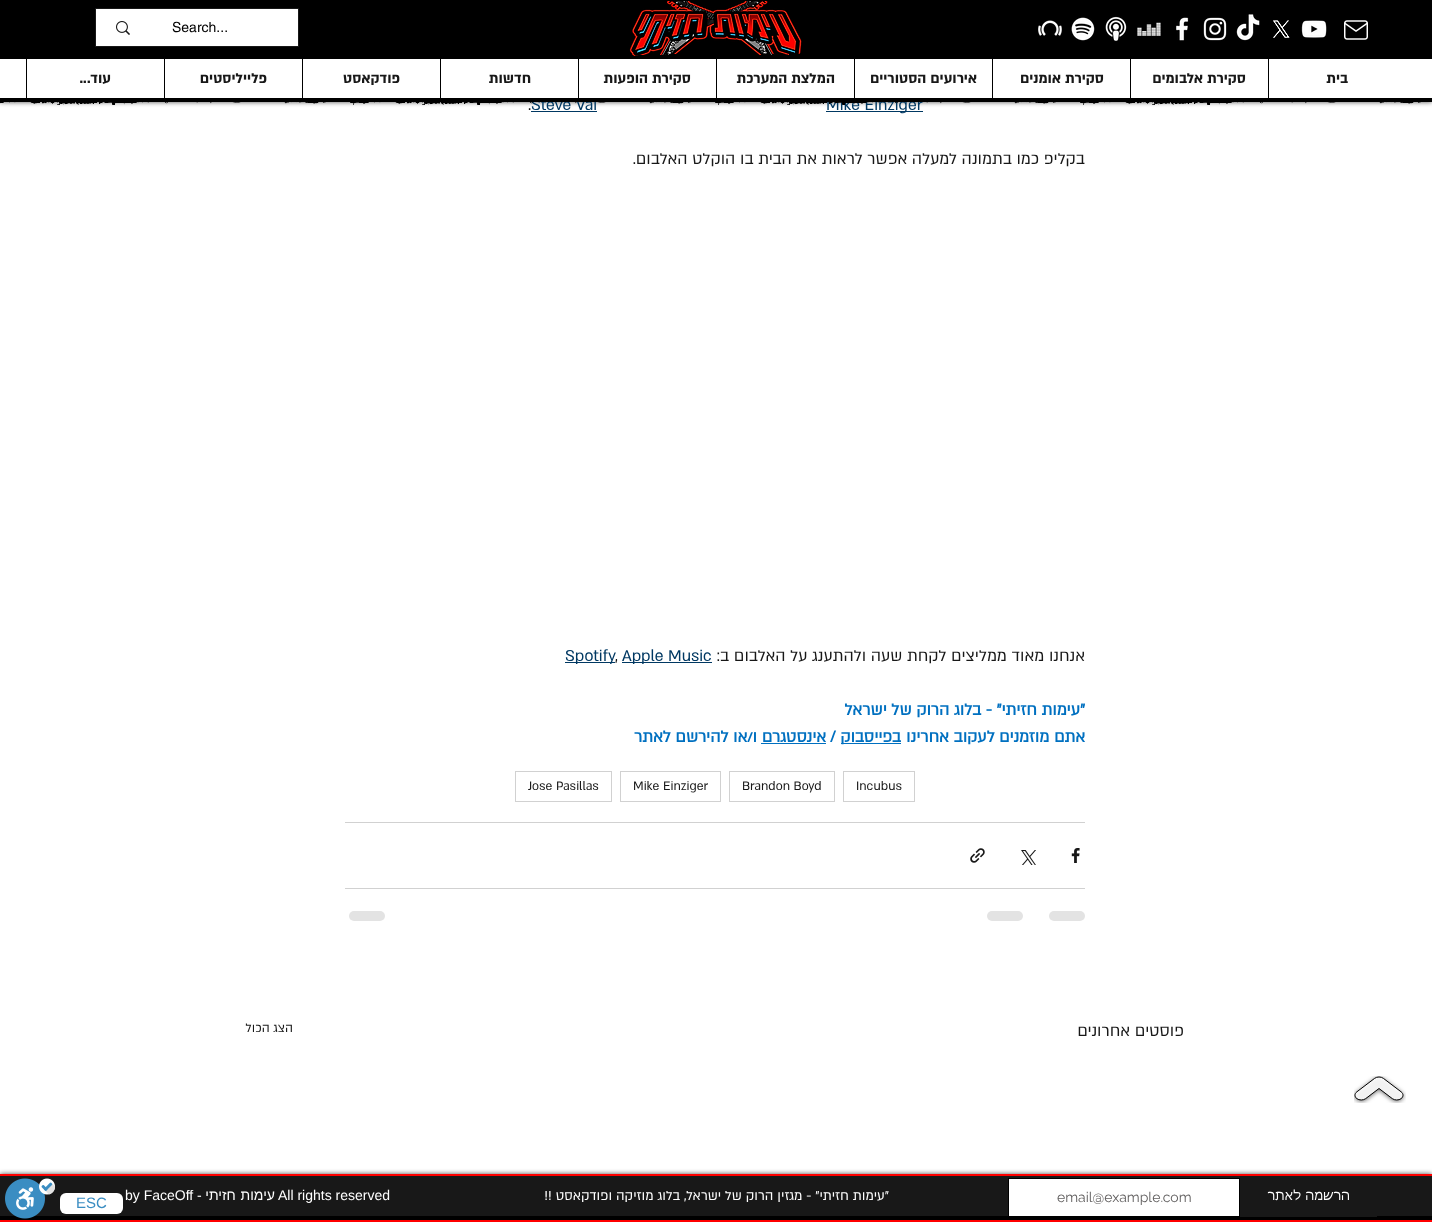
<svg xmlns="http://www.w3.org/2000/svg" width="1432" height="1222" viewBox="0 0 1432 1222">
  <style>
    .t1 { font: 18px 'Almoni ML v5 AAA'; fill: #003862; }
    .t2 { font: 14px helvetica; fill: #000; }
    .t3 { font: bold 16px 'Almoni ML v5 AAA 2'; direction: rtl; fill: #181818; }
    .t4 { font: 18px 'Almoni ML v5 AAA'; fill: #181818; }
    .t5 { font: 18px 'Almoni ML v5 AAA'; direction: rtl; fill: #181818; }
    .t6 { font: bold 18px 'Almoni ML v5 AAA'; direction: rtl; fill: #0070c0; }
    .t7 { font: bold 18px 'Almoni ML v5 AAA'; fill: #0070c0; }
    .t8 { font: 14px 'Almoni ML v5 AAA'; fill: #181818; }
    .t9 { font: 14px 'Almoni ML v5 AAA'; direction: rtl; fill: #181818; }
    .t10 { font: 13px tahoma; direction: rtl; fill: #fff; }
    .t11 { font: 14px Raleway; fill: #605e5e; }
    .t12 { font: 15px 'Almoni ML v5 AAA'; direction: rtl; fill: #fff; }
    .t13 { font: 14px Liberation Sans; fill: #fff; }
    .t14 { font: 14px Liberation Sans; direction: rtl; fill: #fff; }
    .t15 { font: 15px Liberation Sans; fill: #3a8dc2; }
  </style>
  <rect width="100%" height="100%" fill="#fff"/>
  <rect x="0" y="0" width="1432" height="102" fill="#000000b3" filter="blur(2.5px)"/>
  <rect x="826" y="111" width="97" height="1" fill="#003862"/>
  <text x="826" y="110" class="t1">Mike Einziger</text>
  <text x="531" y="110" class="t1">Steve Vai</text>
  <rect x="0" y="0" width="1432" height="102" fill="#000"/>
  <image x="1344" y="20" width="24" height="20" href="images/1.png"/>
  <image x="1301" y="20" width="26" height="18" href="images/2.png"/>
  <image x="1273" y="20" width="17" height="18" href="images/3.png"/>
  <image x="1236" y="14" width="24" height="27" href="images/4.png"/>
  <image x="1203" y="17" width="24" height="24" href="images/5.png"/>
  <image x="1176" y="17" width="13" height="24" href="images/6.png"/>
  <image x="1137" y="22" width="24" height="14" href="images/7.png"/>
  <image x="1105" y="16" width="22" height="25" href="images/8.png"/>
  <image x="1071" y="17" width="24" height="24" href="images/9.png"/>
  <image x="1038" y="20" width="24" height="16" href="images/10.png"/>
  <image x="629" y="1" width="173" height="55" href="images/11.png"/>
  <rect x="95.5" y="8.5" width="203" height="38" fill="none" stroke="#181818"/>
  <rect x="96" y="9" width="202" height="37" fill="#fff"/>
  <text x="172" y="32" class="t2">Search...</text>
  <image x="116" y="21" width="14" height="14" href="images/12.png"/>
  <image x="632" y="52" width="169" height="7" href="images/13.png"/>
  <rect x="0" y="59" width="1432" height="39" fill="#fff"/>
  <rect x="1268" y="59" width="1" height="39" fill="#000"/>
  <text x="1348" y="83" class="t3">בית</text>
  <rect x="1130" y="59" width="1" height="39" fill="#000"/>
  <text x="1246" y="83" class="t3">סקירת אלבומים</text>
  <rect x="992" y="59" width="1" height="39" fill="#000"/>
  <text x="1104" y="83" class="t3">סקירת אומנים</text>
  <rect x="854" y="59" width="1" height="39" fill="#000"/>
  <text x="977" y="83" class="t3">אירועים הסטוריים</text>
  <rect x="716" y="59" width="1" height="39" fill="#000"/>
  <text x="835" y="83" class="t3">המלצת המערכת</text>
  <rect x="578" y="59" width="1" height="39" fill="#000"/>
  <text x="691" y="83" class="t3">סקירת הופעות</text>
  <rect x="440" y="59" width="1" height="39" fill="#000"/>
  <text x="531" y="83" class="t3">חדשות</text>
  <rect x="302" y="59" width="1" height="39" fill="#000"/>
  <text x="400" y="83" class="t3">פודקאסט</text>
  <rect x="164" y="59" width="1" height="39" fill="#000"/>
  <text x="267" y="83" class="t3">פלייליסטים</text>
  <rect x="26" y="59" width="1" height="39" fill="#000"/>
  <text x="111" y="83" class="t3">עוד...</text>
  <image x="0" y="102" width="1421" height="3" href="images/14.png"/>
  <rect x="531" y="111" width="66" height="1" fill="#003862"/>
  <text x="528" y="110" class="t4">.</text>
  <text x="1085" y="164" class="t5">בקליפ כמו בתמונה למעלה אפשר לראות את הבית בו הוקלט האלבום.</text>
  <text x="1085" y="661" class="t5">אנחנו מאוד ממליצים לקחת שעה ולהתענג על האלבום ב:</text>
  <rect x="622" y="662" width="90" height="1" fill="#003862"/>
  <text x="622" y="661" class="t1">Apple Music</text>
  <rect x="565" y="662" width="50" height="1" fill="#003862"/>
  <text x="565" y="661" class="t1">Spotify</text>
  <text x="615" y="661" class="t4">,</text>
  <text x="1085" y="715" class="t6">"עימות חזיתי" - בלוג הרוק של ישראל</text>
  <text x="1085" y="742" class="t6">אתם מוזמנים לעקוב אחרינו</text>
  <rect x="841" y="743" width="60" height="1" fill="#0070c0"/>
  <text x="901" y="742" class="t6">בפייסבוק</text>
  <text x="830" y="742" class="t7">/</text>
  <text x="826" y="742" class="t6">אינסטגרם</text>
  <rect x="761" y="743" width="65" height="1" fill="#0070c0"/>
  <text x="757" y="742" class="t6">ו/או להירשם לאתר</text>
  <rect x="843.5" y="771.5" width="71" height="30" fill="none" stroke="#d1d1d1"/>
  <text x="856" y="790" class="t8">Incubus</text>
  <rect x="729.5" y="771.5" width="105" height="30" fill="none" stroke="#d1d1d1"/>
  <text x="742" y="790" class="t8">Brandon Boyd</text>
  <rect x="620.5" y="771.5" width="100" height="30" fill="none" stroke="#d1d1d1"/>
  <text x="633" y="790" class="t8">Mike Einziger</text>
  <rect x="515.5" y="771.5" width="96" height="30" fill="none" stroke="#d1d1d1"/>
  <text x="528" y="790" class="t8">Jose Pasillas</text>
  <rect x="345" y="822" width="740" height="1" fill="#d1d1d1"/>
  <image x="1071" y="848" width="9" height="15" href="images/15.png"/>
  <image x="1021" y="850" width="15" height="15" href="images/16.png"/>
  <image x="970" y="848" width="15" height="15" href="images/17.png"/>
  <rect x="345" y="888" width="740" height="1" fill="#d1d1d1"/>
  <rect x="1049" y="911" width="36" height="10" rx="5" fill="#e3e3e3"/>
  <rect x="987" y="911" width="36" height="10" rx="5" fill="#e3e3e3"/>
  <rect x="349" y="911" width="36" height="10" rx="5" fill="#e3e3e3"/>
  <text x="1184" y="1036" class="t5">פוסטים אחרונים</text>
  <text x="293" y="1032" class="t9">הצג הכול</text>
  <image x="1354" y="1076" width="52" height="27" href="images/18.png"/>
  <rect x="0" y="1174" width="1432" height="48" fill="#000000b3" filter="blur(2.5px)"/>
  <rect x="0" y="1174" width="1432" height="2" fill="#f00"/>
  <rect x="0" y="1220" width="1432" height="2" fill="#f00"/>
  <rect x="0" y="1216" width="1432" height="4" fill="#000"/>
  <rect x="1240" y="1216" width="137" height="1" fill="#181818"/>
  <rect x="0" y="1176" width="1432" height="40" fill="#181818"/>
  <text x="1350" y="1200" class="t10">הרשמה לאתר</text>
  <rect x="1008.5" y="1178.5" width="231" height="38" fill="#fff" stroke="#000"/>
  <text x="1057" y="1202" class="t11">email@example.com</text>
  <text x="889" y="1200" class="t12">"עימות חזיתי" - מגזין הרוק של ישראל, בלוג מוזיקה ופודקאסט !!</text>
  <text x="278" y="1200" class="t13">All rights reserved</text>
  <text x="275" y="1200" word-spacing="1" class="t14">עימות חזיתי</text>
  <text x="125" y="1200" class="t13">by FaceOff -</text>
  <rect x="60" y="1193" width="63" height="21" rx="6" fill="#fff"/>
  <text x="76" y="1208" class="t15">ESC</text>
  <image x="5" y="1178" width="51" height="41" href="images/19.png"/>
</svg>
